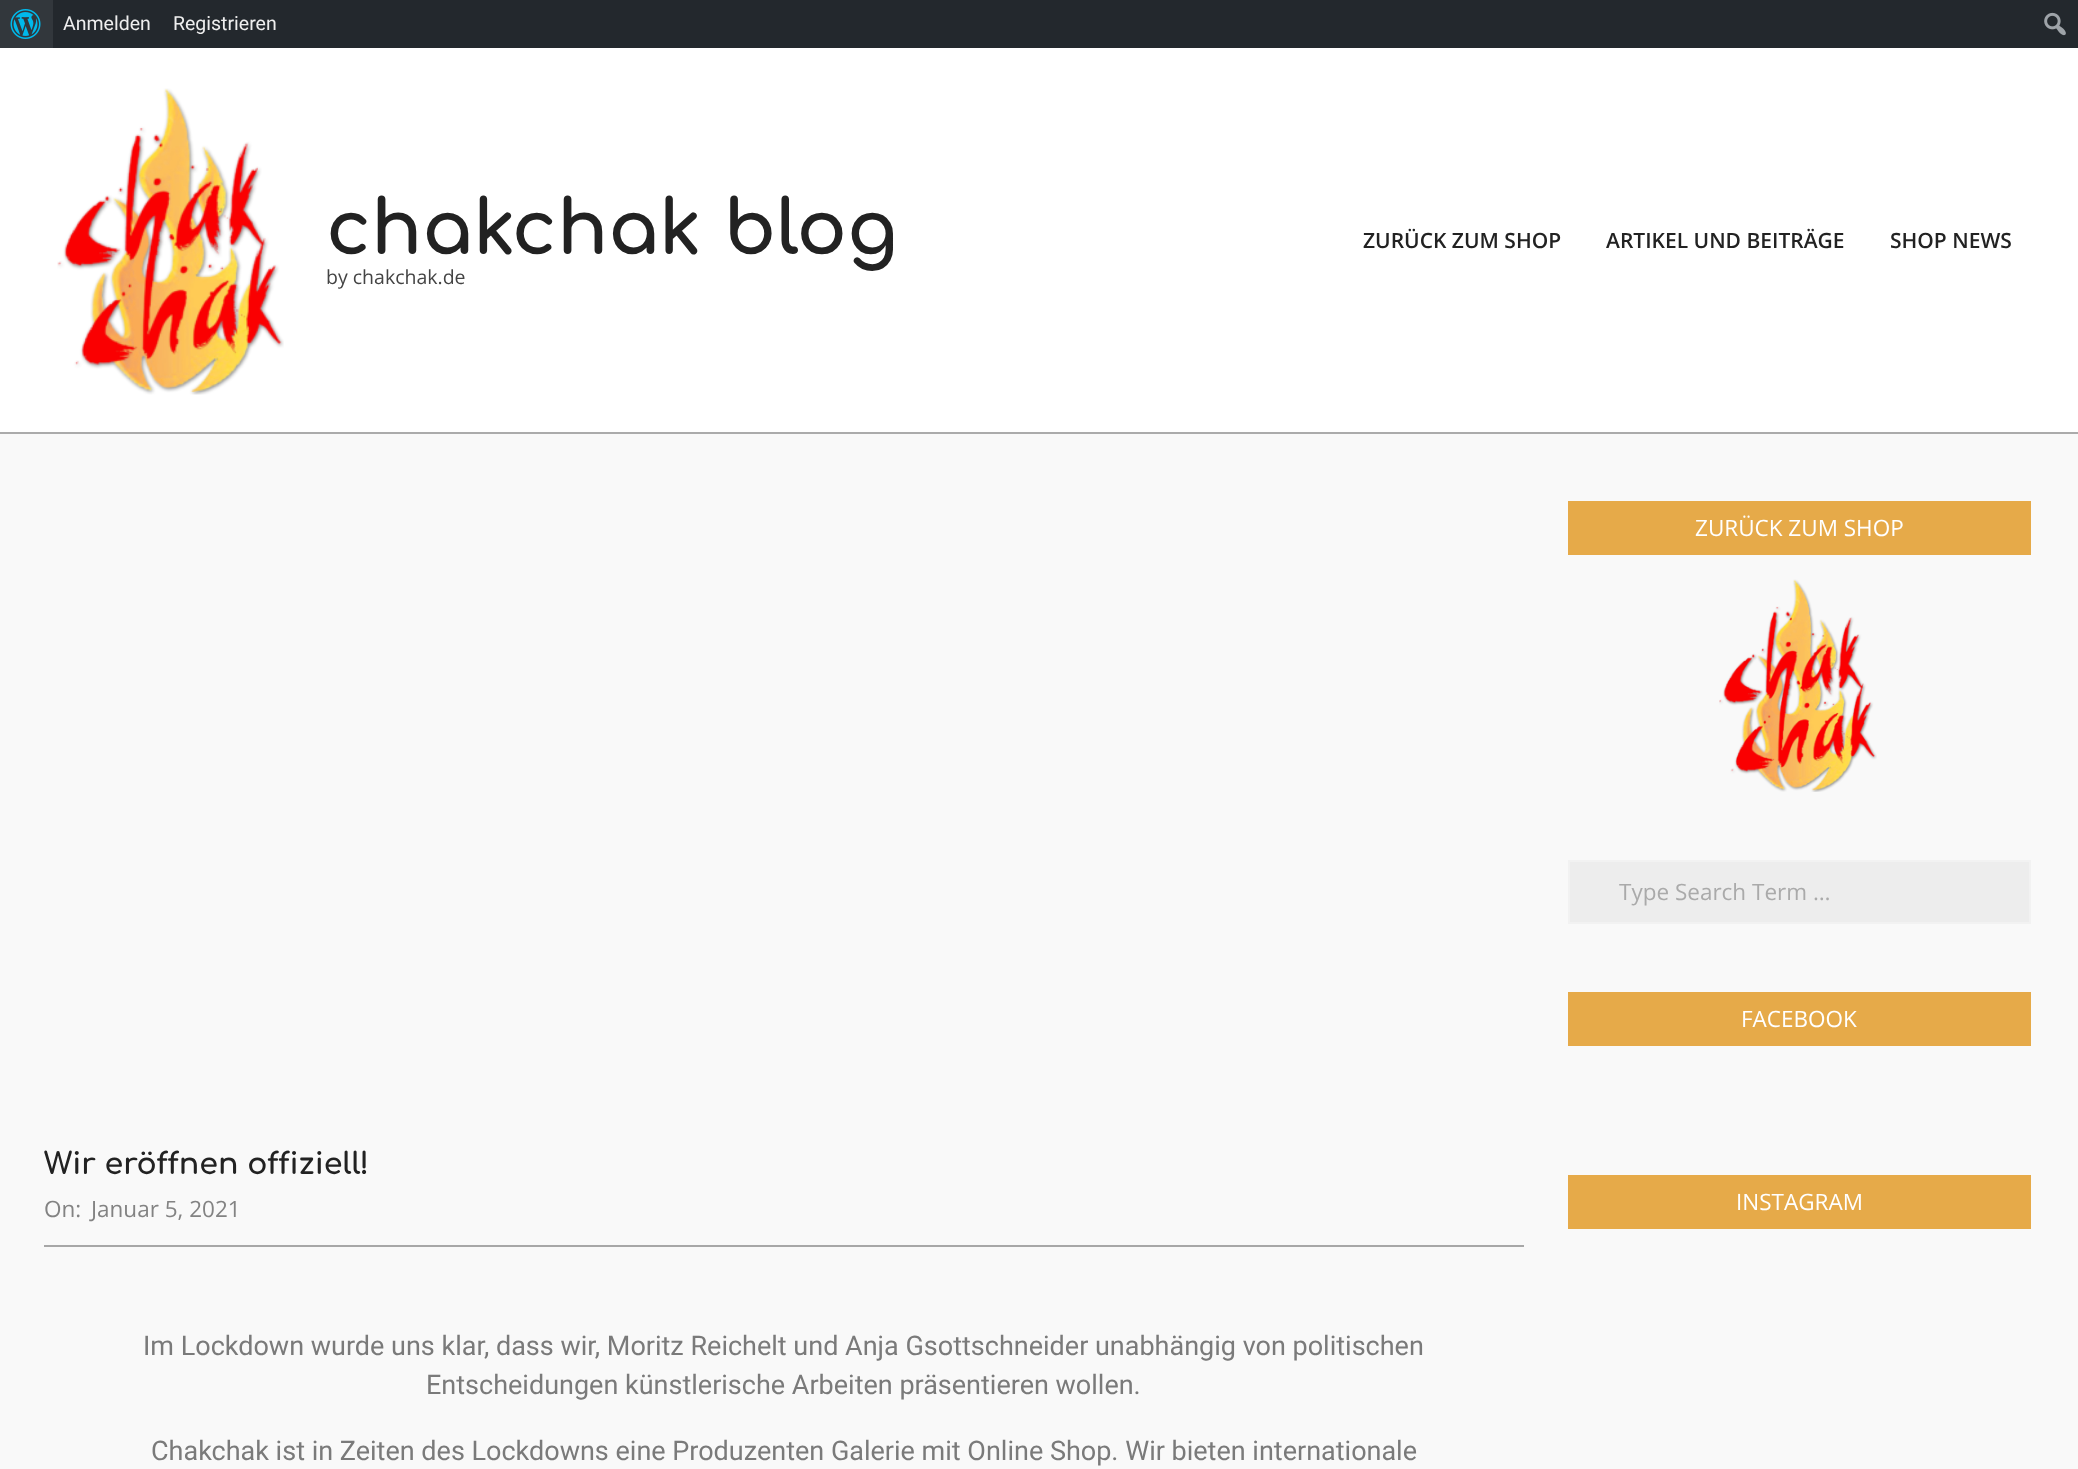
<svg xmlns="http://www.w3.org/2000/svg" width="2078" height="1469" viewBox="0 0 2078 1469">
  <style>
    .t1 { font: 19.5px Roboto; fill: #eee; }
    .t2 { font: bold 75px Comfortaa; fill: #222; }
    .t3 { font: 19.5px Open Sans; fill: #444; }
    .t4 { font: 600 21px Open Sans; fill: #222; }
    .t5 { font: 22.5px Open Sans; fill: #fff; }
    .t6 { font: 22.5px Open Sans; fill: #aaa; }
    .t7 { font: bold 30px Comfortaa; fill: #222; }
    .t8 { font: 22.5px Open Sans; fill: #838383; }
    .t9 { font: 27px Roboto; fill: #7a7a7a; }
  </style>
  <rect width="100%" height="100%" fill="#fff"/>
  <rect x="53" y="0" width="2025" height="48" fill="#23282d"/>
  <rect x="0" y="0" width="53" height="48" fill="#32373c"/>
  <image x="10" y="9" width="31" height="30" href="images/1.png"/>
  <text x="63" y="30" class="t1">Anmelden</text>
  <text x="173" y="30" class="t1">Registrieren</text>
  <image x="2044" y="12" width="22" height="24" href="images/2.png"/>
  <rect x="0" y="432" width="2078" height="2" fill="#ababab"/>
  <image x="57" y="88" width="227" height="307" href="images/3.png"/>
  <text x="326" y="254" class="t2">chakchak blog</text>
  <text x="326" y="284" class="t3">by chakchak.de</text>
  <text x="1363" y="248" class="t4">ZURÜCK ZUM SHOP</text>
  <text x="1606" y="248" class="t4">ARTIKEL UND BEITRÄGE</text>
  <text x="1890" y="248" class="t4">SHOP NEWS</text>
  <rect x="0" y="434" width="2078" height="1035" fill="#f9f9f9"/>
  <rect x="1568" y="501" width="463" height="54" fill="#e6aa49"/>
  <text x="1695" y="536" class="t5">ZURÜCK ZUM SHOP</text>
  <image x="1719" y="579" width="158" height="213" href="images/4.png"/>
  <rect x="1569" y="861" width="461" height="62" fill="#ededed" stroke="#f2f2f2" stroke-width="2"/>
  <text x="1619" y="900" class="t6">Type Search Term …</text>
  <rect x="1568" y="992" width="463" height="54" fill="#e6aa49"/>
  <text x="1741" y="1027" class="t5">FACEBOOK</text>
  <rect x="1568" y="1175" width="463" height="54" fill="#e6aa49"/>
  <text x="1736" y="1210" class="t5">INSTAGRAM</text>
  <rect x="44" y="1245" width="1480" height="2" fill="#a7a7a7"/>
  <text x="44" y="1174" class="t7">Wir eröffnen offiziell!</text>
  <text x="44" y="1217" class="t8">On:</text>
  <text x="91" y="1217" class="t8">Januar 5, 2021</text>
  <text x="143" y="1355" class="t9">Im Lockdown wurde uns klar, dass wir, Moritz Reichelt und Anja Gsottschneider unabhängig von politischen</text>
  <text x="426" y="1394" class="t9">Entscheidungen künstlerische Arbeiten präsentieren wollen.</text>
  <text x="151" y="1460" class="t9">Chakchak ist in Zeiten des Lockdowns eine Produzenten Galerie mit Online Shop. Wir bieten internationale</text>
</svg>
